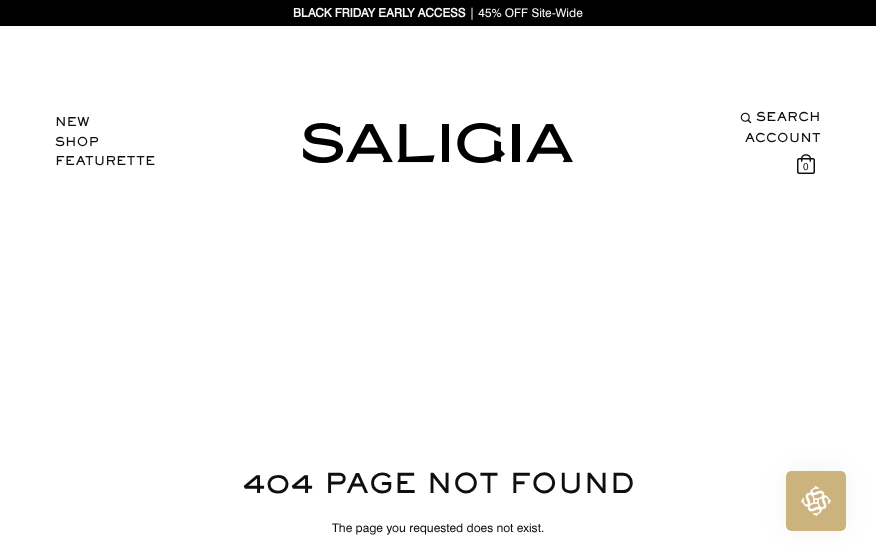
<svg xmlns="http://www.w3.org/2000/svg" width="876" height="551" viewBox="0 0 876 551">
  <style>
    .t1 { font: bold 12px 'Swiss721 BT'; fill: #f7f8f8; }
    .t2 { font: 12px 'Swiss721 BT'; fill: #f7f8f8; }
    .t3 { font: 900 12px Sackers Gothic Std; fill: #0f0f0c; }
    .t4 { font: 10px 'Swiss721 BT'; fill: #0f0f0c; }
    .t5 { font: 900 27px Sackers Gothic Std; fill: #0f0f0c; }
    .t6 { font: 12px 'Swiss721 BT'; fill: #0f0f0c; }
  </style>
  <rect width="100%" height="100%" fill="#fff"/>
  <rect x="0" y="0" width="876" height="26" fill="#000"/>
  <text x="293" y="17" class="t1">BLACK FRIDAY EARLY ACCESS</text>
  <text x="469" y="17" class="t2">| 45% OFF Site-Wide</text>
  <text x="55" y="126" class="t3">NEW</text>
  <text x="55" y="146" class="t3">SHOP</text>
  <text x="55" y="165" class="t3">FEATURETTE</text>
  <image x="303" y="123" width="270" height="40" href="images/1.png"/>
  <image x="740" y="112" width="12" height="12" href="images/2.png"/>
  <text x="756" y="121" class="t3">SEARCH</text>
  <text x="745" y="142" class="t3">ACCOUNT</text>
  <image x="797" y="154" width="18" height="20" href="images/3.png"/>
  <text x="803" y="170" class="t4">0</text>
  <text x="242" y="493" class="t5">404 PAGE NOT FOUND</text>
  <text x="332" y="532" class="t6">The page you requested does not exist.</text>
  <rect x="786" y="471" width="60" height="60" rx="5" fill="#0000000d" filter="blur(12.5px)"/>
  <image x="786" y="471" width="60" height="60" href="images/4.png"/>
</svg>
